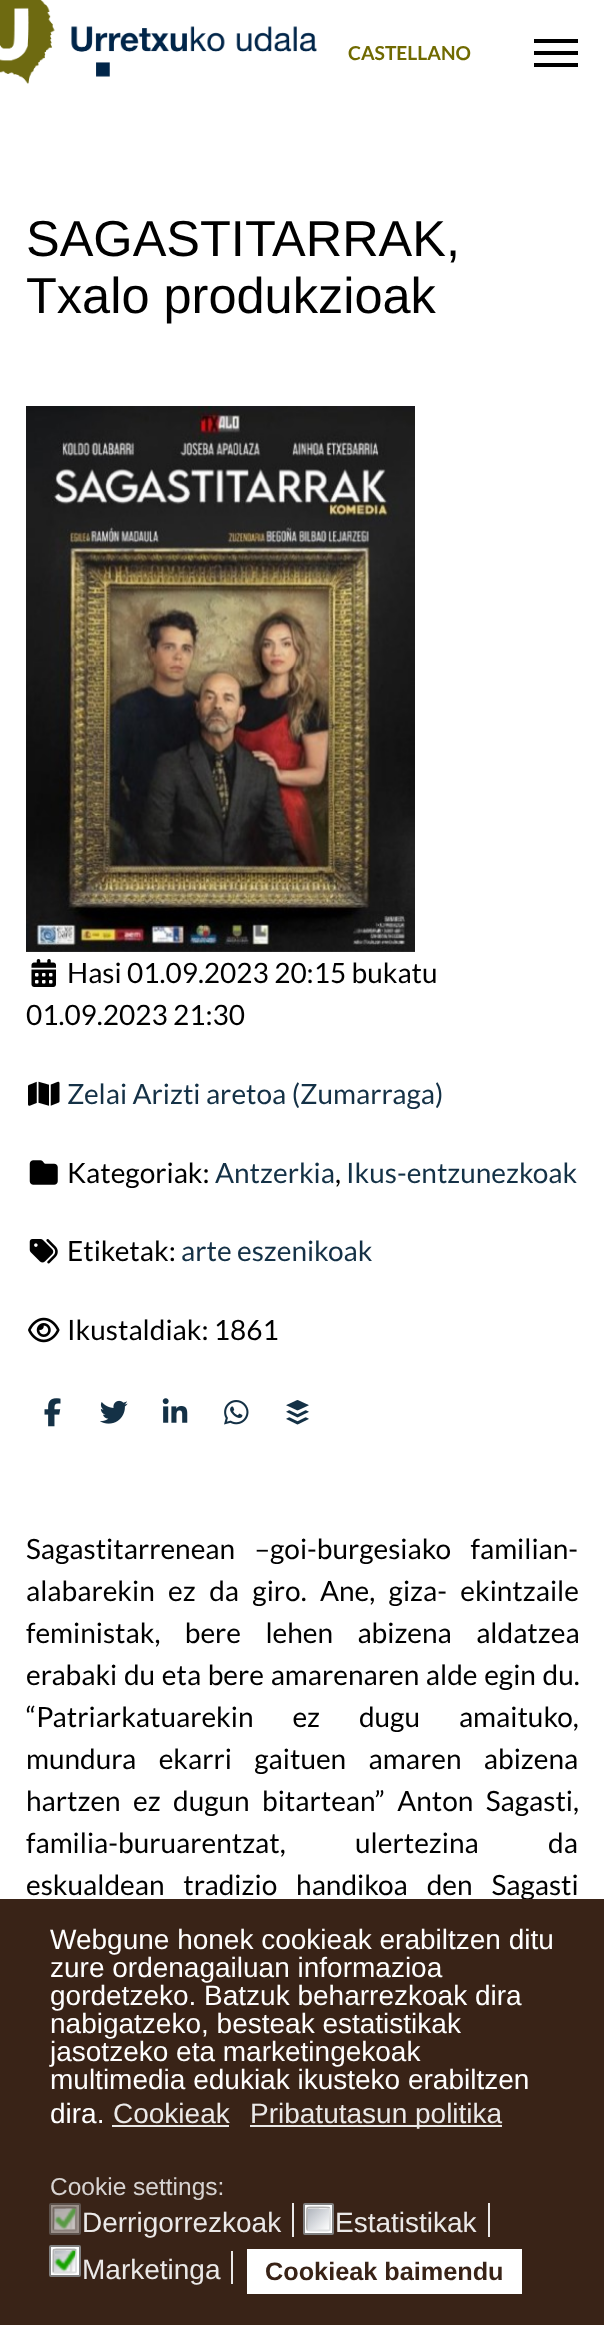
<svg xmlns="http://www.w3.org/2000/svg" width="604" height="2325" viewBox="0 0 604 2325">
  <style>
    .t1 { font: bold 19.25px Lato; fill: #706a00; }
    .t2 { font: 50.5px Liberation Sans; fill: #000; }
    .t3 { font: 28px Lato; fill: #000; }
    .t4 { font: 28px Lato; fill: #143146; }
    .t5 { font: 28px Liberation Sans; fill: #fff; }
    .t6 { font: 28px Liberation Sans; fill: #ebe9e8; }
    .t7 { font: 24.5px Liberation Sans; fill: #d7d3d1; }
    .t8 { font: bold 25.25px Liberation Sans; fill: #392317; }
  </style>
  <defs>
    <linearGradient id="g1" gradientUnits="userSpaceOnUse" x1="308" y1="2209" x2="329" y2="2230"><stop offset="0" stop-color="#b1b6be"/><stop offset="1" stop-color="#fff"/></linearGradient>
  </defs>
  <rect width="100%" height="100%" fill="#fff"/>
  <image x="0" y="0" width="317" height="84" href="images/1.png"/>
  <text x="348" y="60" class="t1">CASTELLANO</text>
  <rect x="534" y="39" width="44" height="4" fill="#000"/>
  <rect x="534" y="51" width="44" height="4" fill="#000"/>
  <rect x="534" y="63" width="44" height="4" fill="#000"/>
  <text x="26" y="256" class="t2">SAGASTITARRAK,</text>
  <text x="26" y="313" class="t2">Txalo produkzioak</text>
  <image x="26" y="406" width="389" height="546" href="images/2.png"/>
  <image x="31" y="959" width="25" height="28" href="images/3.png"/>
  <text x="67" y="983" class="t3">Hasi 01.09.2023 20:15 bukatu</text>
  <text x="26" y="1025" class="t3">01.09.2023 21:30</text>
  <image x="28" y="1081" width="32" height="25" href="images/4.png"/>
  <text x="67" y="1104" class="t4">Zelai Arizti aretoa (Zumarraga)</text>
  <image x="29" y="1160" width="29" height="25" href="images/5.png"/>
  <text x="67" y="1183" class="t3">Kategoriak:</text>
  <text x="215" y="1183" class="t4">Antzerkia</text>
  <text x="335" y="1183" class="t3">,</text>
  <text x="346" y="1183" class="t4">Ikus-entzunezkoak</text>
  <image x="29" y="1239" width="29" height="25" href="images/6.png"/>
  <text x="67" y="1261" class="t3">Etiketak:</text>
  <text x="181" y="1261" class="t4">arte eszenikoak</text>
  <image x="28" y="1317" width="32" height="26" href="images/7.png"/>
  <text x="67" y="1340" class="t3">Ikustaldiak: 1861</text>
  <image x="44" y="1398" width="17" height="29" href="images/8.png"/>
  <image x="100" y="1400" width="28" height="24" href="images/9.png"/>
  <image x="162" y="1398" width="26" height="25" href="images/10.png"/>
  <image x="224" y="1400" width="25" height="25" href="images/11.png"/>
  <image x="286" y="1400" width="23" height="25" href="images/12.png"/>
  <text x="26" y="1559" word-spacing="14" class="t3">Sagastitarrenean –goi-burgesiako familian-</text>
  <text x="26" y="1601" word-spacing="8" class="t3">alabarekin ez da giro. Ane, giza- ekintzaile</text>
  <text x="26" y="1643" word-spacing="19" class="t3">feministak, bere lehen abizena aldatzea</text>
  <text x="26" y="1685" word-spacing="1.25" class="t3">erabaki du eta bere amarenaren alde egin du.</text>
  <text x="26" y="1727" word-spacing="33.5" class="t3">“Patriarkatuarekin ez dugu amaituko,</text>
  <text x="26" y="1769" word-spacing="17" class="t3">mundura ekarri gaituen amaren abizena</text>
  <text x="26" y="1811" word-spacing="7" class="t3">hartzen ez dugun bitartean” Anton Sagasti,</text>
  <text x="26" y="1853" word-spacing="64" class="t3">familia-buruarentzat, ulertezina da</text>
  <text x="26" y="1895" word-spacing="13.5" class="t3">eskualdean tradizio handikoa den Sagasti</text>
  <rect x="0" y="1899" width="604" height="426" fill="#392317"/>
  <text x="50" y="1949" class="t5">Webgune honek cookieak erabiltzen ditu</text>
  <text x="50" y="1977" class="t5">zure ordenagailuan informazioa</text>
  <text x="50" y="2005" class="t5">gordetzeko. Batzuk beharrezkoak dira</text>
  <text x="50" y="2033" class="t5">nabigatzeko, besteak estatistikak</text>
  <text x="50" y="2061" class="t5">jasotzeko eta marketingekoak</text>
  <text x="50" y="2089" class="t5">multimedia edukiak ikusteko erabiltzen</text>
  <text x="50" y="2123" class="t5">dira.</text>
  <text x="113" y="2123" class="t6">Cookieak</text>
  <rect x="112" y="2125" width="117" height="2" fill="#ebe9e8"/>
  <rect x="250" y="2125" width="252" height="2" fill="#ebe9e8"/>
  <text x="250" y="2123" class="t6">Pribatutasun politika</text>
  <text x="50" y="2195" class="t7">Cookie settings:</text>
  <rect x="50" y="2204" width="30" height="30" rx="1" fill="#9c918b" stroke="#5d524c" stroke-width="2"/>
  <image x="52" y="2206" width="25" height="26" href="images/13.png"/>
  <path d="M76 2208C76.5 2208.5 76 2217.5 76 2219V2226C76 2231 77 2230.5 72 2230.5H65C63 2230.5 54.5 2231 53.5 2230" fill="none" stroke="#8b807b" stroke-width="1.8"/>
  <path d="M53.5 2230C53 2229.5 53.5 2220.5 53.5 2219V2212C53.5 2207 52.5 2207.5 58 2207.5H65C66.5 2207.5 75 2207 76 2208" fill="none" stroke="#766b65" stroke-width="1.8"/>
  <rect x="292" y="2203" width="2" height="34" fill="#ebe9e8"/>
  <text x="82" y="2232" class="t6">Derrigorrezkoak</text>
  <rect x="304" y="2204" width="29" height="30" rx="1" fill="#fff" stroke="#808080" stroke-width="2"/>
  <rect x="308" y="2209" width="21" height="21" fill="url(#g1)"/>
  <path d="M329.5 2208C330.5 2208.5 330 2217.5 330 2219V2226C330 2231 330.5 2230.5 325.5 2230.5H318.5C317 2230.5 308 2231 307.5 2230" fill="none" stroke="#dcddde" stroke-width="1.8"/>
  <path d="M307.5 2230C306.5 2229.5 307 2220.5 307 2219V2212C307 2207 306.5 2207.5 311.5 2207.5H318.5C320 2207.5 329 2207 329.5 2208" fill="none" stroke="#b3b3b3" stroke-width="1.8"/>
  <rect x="488" y="2203" width="2" height="34" fill="#ebe9e8"/>
  <text x="335" y="2232" class="t6">Estatistikak</text>
  <rect x="50" y="2246" width="30" height="30" rx="1" fill="#fff" stroke="#808080" stroke-width="2"/>
  <image x="52" y="2248" width="26" height="26" href="images/14.png"/>
  <path d="M76 2250C76.5 2250.5 76 2259.5 76 2261V2268C76 2273 77 2272.5 72 2272.5H65C63 2272.5 54.5 2273 53.5 2272" fill="none" stroke="#dcddde" stroke-width="1.8"/>
  <path d="M53.5 2272C53 2271.5 53.5 2262.5 53.5 2261V2254C53.5 2249 52.5 2249.5 58 2249.5H65C66.5 2249.5 75 2249 76 2250" fill="none" stroke="#b3b3b3" stroke-width="1.8"/>
  <rect x="231" y="2251" width="2" height="33" fill="#ebe9e8"/>
  <text x="82" y="2279" class="t6">Marketinga</text>
  <rect x="247" y="2249" width="275" height="45" fill="#fff"/>
  <text x="265" y="2280" class="t8">Cookieak baimendu</text>
</svg>
